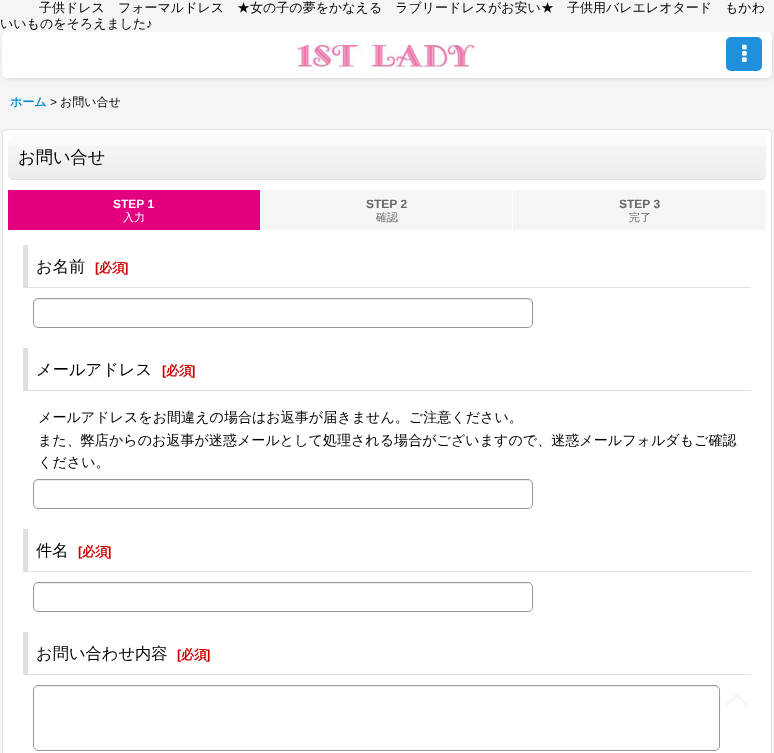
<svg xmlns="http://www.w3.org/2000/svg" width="774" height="753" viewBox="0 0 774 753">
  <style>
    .t1 { font: 500 13px WenQuanYi Zen Hei; fill: #000; }
    .t2 { font: 13px Liberation Sans; fill: #000; }
    .t3 { font: bold 12px WenQuanYi Zen Hei; fill: #08c; }
    .t4 { font: 12px Liberation Sans; fill: #000; }
    .t5 { font: 500 12px WenQuanYi Zen Hei; fill: #000; }
    .t6 { font: 500 17.25px WenQuanYi Zen Hei; fill: #000; }
    .t7 { font: bold 12px Liberation Sans; fill: #fff; }
    .t8 { font: 500 11px WenQuanYi Zen Hei; fill: #fff; }
    .t9 { font: bold 12px Liberation Sans; fill: #666; }
    .t10 { font: 500 11px WenQuanYi Zen Hei; fill: #666; }
    .t11 { font: 500 16.25px WenQuanYi Zen Hei; fill: #000; }
    .t12 { font: bold 13px Liberation Sans; fill: #c00; }
    .t13 { font: bold 13px WenQuanYi Zen Hei; fill: #c00; }
    .t14 { font: 500 14.05px WenQuanYi Zen Hei; fill: #000; }
  </style>
  <defs>
    <clipPath id="clip1"><rect x="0" y="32" width="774" height="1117"/></clipPath>
  </defs>
  <rect width="100%" height="100%" fill="#f5f5f5"/>
  <text x="39" y="12" class="t1">子供ドレス　フォーマルドレス　★女の子の夢をかなえる　ラブリードレスがお安い★　子供用バレエレオタード　もかわ</text>
  <text x="0" y="28" class="t1">いいものをそろえました</text>
  <text x="146" y="28" class="t2">♪</text>
  <g clip-path="url(#clip1)">
    <rect x="6" y="36" width="764" height="40" rx="2" fill="#999" filter="blur(3px)"/>
  </g>
  <rect x="2" y="32" width="770" height="46" rx="5" fill="#fff"/>
  <image x="297" y="44" width="180" height="29" href="images/1.png"/>
  <rect x="726" y="37" width="36" height="34" rx="5" fill="#2090dc"/>
  <image x="742" y="44" width="5" height="18" href="images/2.png"/>
  <text x="10" y="106" class="t3">ホーム</text>
  <text x="50" y="106" class="t4">&gt;</text>
  <text x="60" y="106" class="t5">お問い合せ</text>
  <rect x="2.5" y="129.5" width="769" height="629" rx="4.5" fill="#fff" stroke="#e0dfe3"/>
  <rect x="8" y="136" width="758" height="44" rx="5" fill="#fafafa"/>
  <image x="8" y="146" width="758" height="33" href="images/3.png"/>
  <rect x="11" y="179" width="753" height="1" fill="#e0dfe3"/>
  <text x="18" y="163" class="t6">お問い合せ</text>
  <rect x="8" y="190" width="252" height="40" fill="#e3007e"/>
  <text x="113" y="208" class="t7">STEP 1</text>
  <text x="123" y="221" class="t8">入力</text>
  <rect x="261" y="190" width="251" height="40" fill="#f5f5f5"/>
  <text x="366" y="208" class="t9">STEP 2</text>
  <text x="376" y="221" class="t10">確認</text>
  <rect x="513" y="190" width="253" height="40" fill="#f5f5f5"/>
  <text x="619" y="208" class="t9">STEP 3</text>
  <text x="629" y="221" class="t10">完了</text>
  <rect x="23" y="287" width="728" height="1" fill="#e0dfe3"/>
  <rect x="23" y="245" width="5" height="43" fill="#e0dfe3"/>
  <text x="36" y="272" class="t11">お名前</text>
  <text x="95" y="272" class="t12">[</text>
  <text x="99" y="272" class="t13">必須</text>
  <text x="124" y="272" class="t12">]</text>
  <path d="M38 300H528C530 300 532 302 532 304C532 301 531 299 528 299H38C35 299 34 301 34 304C34 302 36 300 38 300Z" fill="#ececec"/>
  <rect x="33.5" y="298.5" width="499" height="29" rx="4.5" fill="none" stroke="#999"/>
  <rect x="23" y="390" width="728" height="1" fill="#e0dfe3"/>
  <rect x="23" y="348" width="5" height="43" fill="#e0dfe3"/>
  <text x="36" y="375" class="t11">メールアドレス</text>
  <text x="162" y="375" class="t12">[</text>
  <text x="166" y="375" class="t13">必須</text>
  <text x="191" y="375" class="t12">]</text>
  <text x="38" y="422" class="t14">メールアドレスをお間違えの場合はお返事が届きません。ご注意ください。</text>
  <text x="38" y="445" class="t14">また、弊店からのお返事が迷惑メールとして処理される場合がございますので、迷惑メールフォルダもご確認</text>
  <text x="38" y="467" class="t14">ください。</text>
  <path d="M38 481H528C530 481 532 483 532 485C532 482 531 480 528 480H38C35 480 34 482 34 485C34 483 36 481 38 481Z" fill="#ececec"/>
  <rect x="33.5" y="479.5" width="499" height="29" rx="4.5" fill="none" stroke="#999"/>
  <rect x="23" y="571" width="728" height="1" fill="#e0dfe3"/>
  <rect x="23" y="529" width="5" height="43" fill="#e0dfe3"/>
  <text x="36" y="556" class="t11">件名</text>
  <text x="78" y="556" class="t12">[</text>
  <text x="82" y="556" class="t13">必須</text>
  <text x="107" y="556" class="t12">]</text>
  <path d="M38 584H528C530 584 532 586 532 588C532 585 531 583 528 583H38C35 583 34 585 34 588C34 586 36 584 38 584Z" fill="#ececec"/>
  <rect x="33.5" y="582.5" width="499" height="29" rx="4.5" fill="none" stroke="#999"/>
  <rect x="23" y="674" width="728" height="1" fill="#e0dfe3"/>
  <rect x="23" y="632" width="5" height="43" fill="#e0dfe3"/>
  <text x="36" y="659" class="t11">お問い合わせ内容</text>
  <text x="177" y="659" class="t12">[</text>
  <text x="181" y="659" class="t13">必須</text>
  <text x="206" y="659" class="t12">]</text>
  <path d="M38 687H715C717 687 719 689 719 691C719 688 718 686 715 686H38L35 687L34 688V691C34 689 36 687 38 687Z" fill="#ececec"/>
  <rect x="33.5" y="685.5" width="686" height="65" rx="4.5" fill="none" stroke="#999"/>
  <image x="726" y="693" width="22" height="13" href="images/4.png"/>
</svg>
